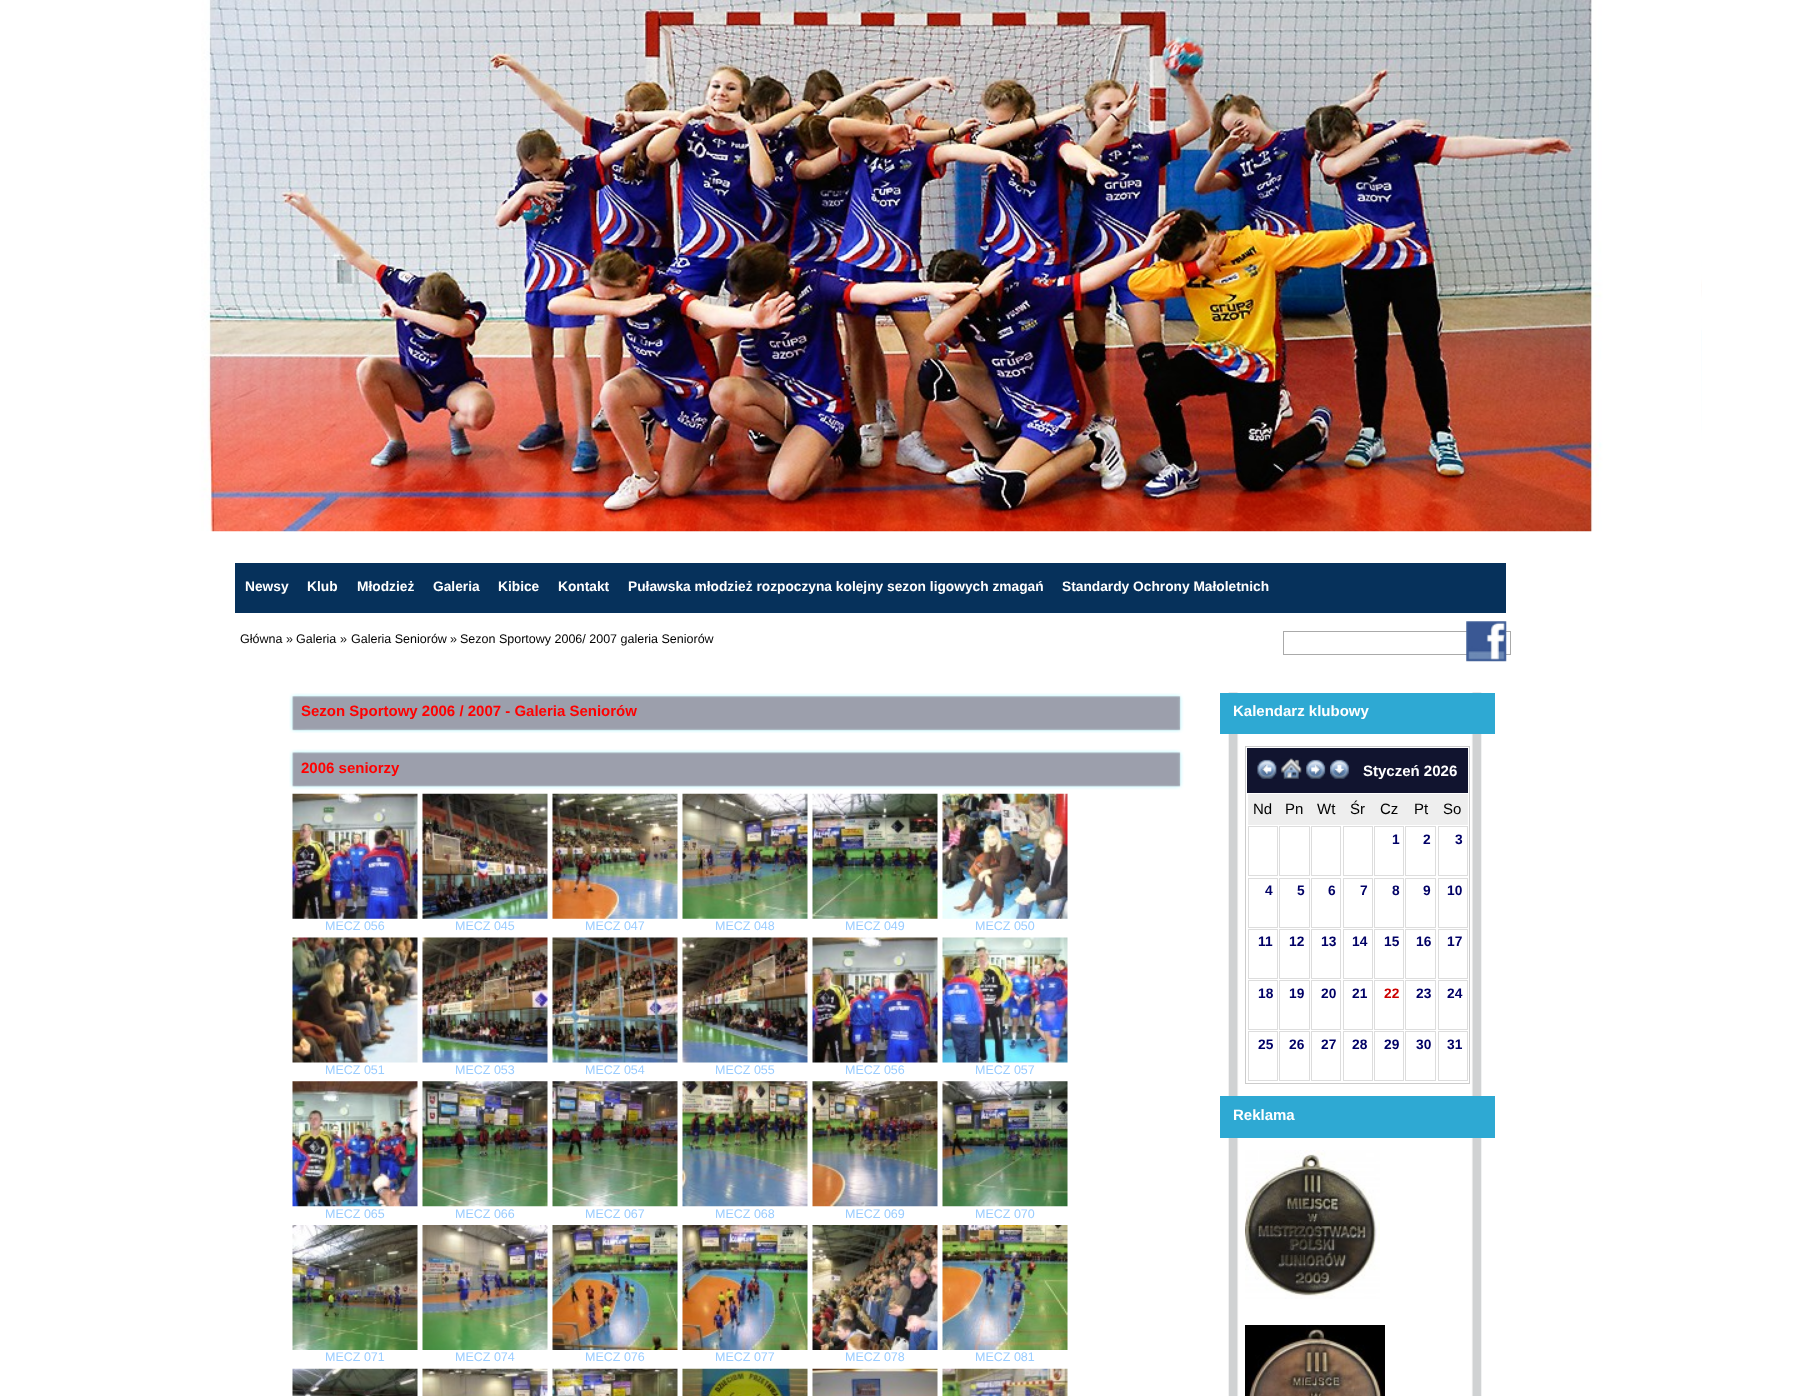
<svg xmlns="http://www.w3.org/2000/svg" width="1802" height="1396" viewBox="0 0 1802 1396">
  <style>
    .t1 { font: bold 13.75px Liberation Sans; fill: #fff; }
    .t2 { font: 12.5px Liberation Sans; fill: #000; }
    .t3 { font: 12.5px Liberation Sans; fill: #171717; }
    .t4 { font: bold 15px Liberation Sans; fill: #f00; }
    .t5 { font: 12.5px Liberation Sans; fill: #9cf; }
    .t6 { font: bold 15px Liberation Sans; fill: #fff; }
    .t7 { font: 15px Liberation Sans; fill: #000; }
    .t8 { font: bold 13.75px Liberation Sans; fill: #006; }
    .t9 { font: bold 13.75px Liberation Sans; fill: #c00; }
  </style>
  <rect width="100%" height="100%" fill="#fff"/>
  <image x="1701" y="0" width="1" height="521" href="images/1.png"/>
  <image x="120" y="0" width="1581" height="532" href="images/2.png"/>
  <rect x="235" y="563" width="1271" height="50" fill="#06315b"/>
  <text x="245" y="591" class="t1">Newsy</text>
  <text x="307" y="591" class="t1">Klub</text>
  <text x="357" y="591" class="t1">Młodzież</text>
  <text x="433" y="591" class="t1">Galeria</text>
  <text x="498" y="591" class="t1">Kibice</text>
  <text x="558" y="591" class="t1">Kontakt</text>
  <text x="628" y="591" class="t1">Puławska młodzież rozpoczyna kolejny sezon ligowych zmagań</text>
  <text x="1062" y="591" class="t1">Standardy Ochrony Małoletnich</text>
  <rect x="1283.5" y="631.5" width="227" height="23" fill="none" stroke="#aaa"/>
  <image x="1466" y="621" width="41" height="41" href="images/3.png"/>
  <text x="240" y="643" class="t2">Główna</text>
  <text x="286" y="643" class="t3">»</text>
  <text x="296" y="643" class="t2">Galeria</text>
  <text x="340" y="643" class="t3">»</text>
  <text x="351" y="643" class="t2">Galeria Seniorów</text>
  <text x="450" y="643" class="t3">»</text>
  <text x="460" y="643" class="t2">Sezon Sportowy 2006/ 2007 galeria Seniorów</text>
  <image x="289" y="693" width="895" height="40" href="images/4.png"/>
  <text x="301" y="716" class="t4">Sezon Sportowy 2006 / 2007 - Galeria Seniorów</text>
  <image x="289" y="749" width="895" height="41" href="images/5.png"/>
  <text x="301" y="773" class="t4">2006 seniorzy</text>
  <image x="292" y="793" width="126" height="126" href="images/6.png"/>
  <text x="325" y="930" class="t5">MECZ 056</text>
  <image x="422" y="793" width="126" height="126" href="images/7.png"/>
  <text x="455" y="930" class="t5">MECZ 045</text>
  <image x="552" y="793" width="126" height="126" href="images/8.png"/>
  <text x="585" y="930" class="t5">MECZ 047</text>
  <image x="682" y="793" width="126" height="126" href="images/9.png"/>
  <text x="715" y="930" class="t5">MECZ 048</text>
  <image x="812" y="793" width="126" height="126" href="images/10.png"/>
  <text x="845" y="930" class="t5">MECZ 049</text>
  <image x="942" y="793" width="126" height="126" href="images/11.png"/>
  <text x="975" y="930" class="t5">MECZ 050</text>
  <image x="292" y="937" width="126" height="126" href="images/12.png"/>
  <text x="325" y="1074" class="t5">MECZ 051</text>
  <image x="422" y="937" width="126" height="126" href="images/13.png"/>
  <text x="455" y="1074" class="t5">MECZ 053</text>
  <image x="552" y="937" width="126" height="126" href="images/14.png"/>
  <text x="585" y="1074" class="t5">MECZ 054</text>
  <image x="682" y="937" width="126" height="126" href="images/15.png"/>
  <text x="715" y="1074" class="t5">MECZ 055</text>
  <image x="812" y="937" width="126" height="126" href="images/16.png"/>
  <text x="845" y="1074" class="t5">MECZ 056</text>
  <image x="942" y="937" width="126" height="126" href="images/17.png"/>
  <text x="975" y="1074" class="t5">MECZ 057</text>
  <image x="292" y="1081" width="126" height="126" href="images/18.png"/>
  <text x="325" y="1218" class="t5">MECZ 065</text>
  <image x="422" y="1081" width="126" height="126" href="images/19.png"/>
  <text x="455" y="1218" class="t5">MECZ 066</text>
  <image x="552" y="1081" width="126" height="126" href="images/20.png"/>
  <text x="585" y="1218" class="t5">MECZ 067</text>
  <image x="682" y="1081" width="126" height="126" href="images/21.png"/>
  <text x="715" y="1218" class="t5">MECZ 068</text>
  <image x="812" y="1081" width="126" height="126" href="images/22.png"/>
  <text x="845" y="1218" class="t5">MECZ 069</text>
  <image x="942" y="1081" width="126" height="126" href="images/23.png"/>
  <text x="975" y="1218" class="t5">MECZ 070</text>
  <image x="292" y="1225" width="126" height="125" href="images/24.png"/>
  <text x="325" y="1361" class="t5">MECZ 071</text>
  <image x="422" y="1225" width="126" height="125" href="images/25.png"/>
  <text x="455" y="1361" class="t5">MECZ 074</text>
  <image x="552" y="1225" width="126" height="125" href="images/26.png"/>
  <text x="585" y="1361" class="t5">MECZ 076</text>
  <image x="682" y="1225" width="126" height="125" href="images/27.png"/>
  <text x="715" y="1361" class="t5">MECZ 077</text>
  <image x="812" y="1225" width="126" height="125" href="images/28.png"/>
  <text x="845" y="1361" class="t5">MECZ 078</text>
  <image x="942" y="1225" width="126" height="125" href="images/29.png"/>
  <text x="975" y="1361" class="t5">MECZ 081</text>
  <image x="292" y="1368" width="126" height="28" href="images/30.png"/>
  <image x="422" y="1368" width="126" height="28" href="images/31.png"/>
  <image x="552" y="1368" width="126" height="28" href="images/32.png"/>
  <image x="682" y="1368" width="126" height="28" href="images/33.png"/>
  <image x="812" y="1368" width="126" height="28" href="images/34.png"/>
  <image x="942" y="1368" width="126" height="28" href="images/35.png"/>
  <image x="1228" y="692" width="254" height="704" href="images/36.png"/>
  <rect x="1220" y="693" width="275" height="41" fill="#2ea9d3"/>
  <text x="1233" y="716" class="t6">Kalendarz klubowy</text>
  <rect x="1245.5" y="746.5" width="224" height="337" fill="none" stroke="#ccc"/>
  <rect x="1247" y="748" width="221" height="45" fill="#11142f"/>
  <image x="1257" y="759" width="20" height="20" href="images/37.png"/>
  <image x="1281" y="758" width="21" height="21" href="images/38.png"/>
  <image x="1306" y="759" width="20" height="20" href="images/39.png"/>
  <image x="1330" y="759" width="19" height="20" href="images/40.png"/>
  <text x="1363" y="776" class="t6">Styczeń 2026</text>
  <rect x="1248" y="794" width="220" height="31" fill="#eee"/>
  <text x="1253" y="814" class="t7">Nd</text>
  <text x="1285" y="814" class="t7">Pn</text>
  <text x="1317" y="814" class="t7">Wt</text>
  <text x="1350" y="814" class="t7">Śr</text>
  <text x="1380" y="814" class="t7">Cz</text>
  <text x="1414" y="814" class="t7">Pt</text>
  <text x="1443" y="814" class="t7">So</text>
  <rect x="1248.5" y="826.5" width="29" height="49" fill="none" stroke="#ddd"/>
  <rect x="1279.5" y="826.5" width="30" height="49" fill="none" stroke="#ddd"/>
  <rect x="1311.5" y="826.5" width="29" height="49" fill="none" stroke="#ddd"/>
  <rect x="1343.5" y="826.5" width="29" height="49" fill="none" stroke="#ddd"/>
  <rect x="1374.5" y="826.5" width="29" height="49" fill="none" stroke="#ddd"/>
  <text x="1392" y="844" class="t8">1</text>
  <rect x="1405.5" y="826.5" width="30" height="49" fill="none" stroke="#ddd"/>
  <text x="1423" y="844" class="t8">2</text>
  <rect x="1438.5" y="826.5" width="29" height="49" fill="none" stroke="#ddd"/>
  <text x="1455" y="844" class="t8">3</text>
  <rect x="1248.5" y="878.5" width="29" height="49" fill="none" stroke="#ddd"/>
  <text x="1265" y="895" class="t8">4</text>
  <rect x="1279.5" y="878.5" width="30" height="49" fill="none" stroke="#ddd"/>
  <text x="1297" y="895" class="t8">5</text>
  <rect x="1311.5" y="878.5" width="29" height="49" fill="none" stroke="#ddd"/>
  <text x="1328" y="895" class="t8">6</text>
  <rect x="1343.5" y="878.5" width="29" height="49" fill="none" stroke="#ddd"/>
  <text x="1360" y="895" class="t8">7</text>
  <rect x="1374.5" y="878.5" width="29" height="49" fill="none" stroke="#ddd"/>
  <text x="1392" y="895" class="t8">8</text>
  <rect x="1405.5" y="878.5" width="30" height="49" fill="none" stroke="#ddd"/>
  <text x="1423" y="895" class="t8">9</text>
  <rect x="1438.5" y="878.5" width="29" height="49" fill="none" stroke="#ddd"/>
  <text x="1447" y="895" class="t8">10</text>
  <rect x="1248.5" y="929.5" width="29" height="49" fill="none" stroke="#ddd"/>
  <text x="1258" y="946" class="t8">11</text>
  <rect x="1279.5" y="929.5" width="30" height="49" fill="none" stroke="#ddd"/>
  <text x="1289" y="946" class="t8">12</text>
  <rect x="1311.5" y="929.5" width="29" height="49" fill="none" stroke="#ddd"/>
  <text x="1321" y="946" class="t8">13</text>
  <rect x="1343.5" y="929.5" width="29" height="49" fill="none" stroke="#ddd"/>
  <text x="1352" y="946" class="t8">14</text>
  <rect x="1374.5" y="929.5" width="29" height="49" fill="none" stroke="#ddd"/>
  <text x="1384" y="946" class="t8">15</text>
  <rect x="1405.5" y="929.5" width="30" height="49" fill="none" stroke="#ddd"/>
  <text x="1416" y="946" class="t8">16</text>
  <rect x="1438.5" y="929.5" width="29" height="49" fill="none" stroke="#ddd"/>
  <text x="1447" y="946" class="t8">17</text>
  <rect x="1248.5" y="980.5" width="29" height="49" fill="none" stroke="#ddd"/>
  <text x="1258" y="998" class="t8">18</text>
  <rect x="1279.5" y="980.5" width="30" height="49" fill="none" stroke="#ddd"/>
  <text x="1289" y="998" class="t8">19</text>
  <rect x="1311.5" y="980.5" width="29" height="49" fill="none" stroke="#ddd"/>
  <text x="1321" y="998" class="t8">20</text>
  <rect x="1343.5" y="980.5" width="29" height="49" fill="none" stroke="#ddd"/>
  <text x="1352" y="998" class="t8">21</text>
  <rect x="1374.5" y="980.5" width="29" height="49" fill="none" stroke="#ddd"/>
  <text x="1384" y="998" class="t9">22</text>
  <rect x="1405.5" y="980.5" width="30" height="49" fill="none" stroke="#ddd"/>
  <text x="1416" y="998" class="t8">23</text>
  <rect x="1438.5" y="980.5" width="29" height="49" fill="none" stroke="#ddd"/>
  <text x="1447" y="998" class="t8">24</text>
  <rect x="1248.5" y="1031.5" width="29" height="49" fill="none" stroke="#ddd"/>
  <text x="1258" y="1049" class="t8">25</text>
  <rect x="1279.5" y="1031.5" width="30" height="49" fill="none" stroke="#ddd"/>
  <text x="1289" y="1049" class="t8">26</text>
  <rect x="1311.5" y="1031.5" width="29" height="49" fill="none" stroke="#ddd"/>
  <text x="1321" y="1049" class="t8">27</text>
  <rect x="1343.5" y="1031.5" width="29" height="49" fill="none" stroke="#ddd"/>
  <text x="1352" y="1049" class="t8">28</text>
  <rect x="1374.5" y="1031.5" width="29" height="49" fill="none" stroke="#ddd"/>
  <text x="1384" y="1049" class="t8">29</text>
  <rect x="1405.5" y="1031.5" width="30" height="49" fill="none" stroke="#ddd"/>
  <text x="1416" y="1049" class="t8">30</text>
  <rect x="1438.5" y="1031.5" width="29" height="49" fill="none" stroke="#ddd"/>
  <text x="1447" y="1049" class="t8">31</text>
  <rect x="1220" y="1096" width="275" height="42" fill="#2ea9d3"/>
  <text x="1233" y="1120" class="t6">Reklama</text>
  <image x="1245" y="1150" width="135" height="149" href="images/41.png"/>
  <image x="1245" y="1325" width="140" height="71" href="images/42.png"/>
</svg>
